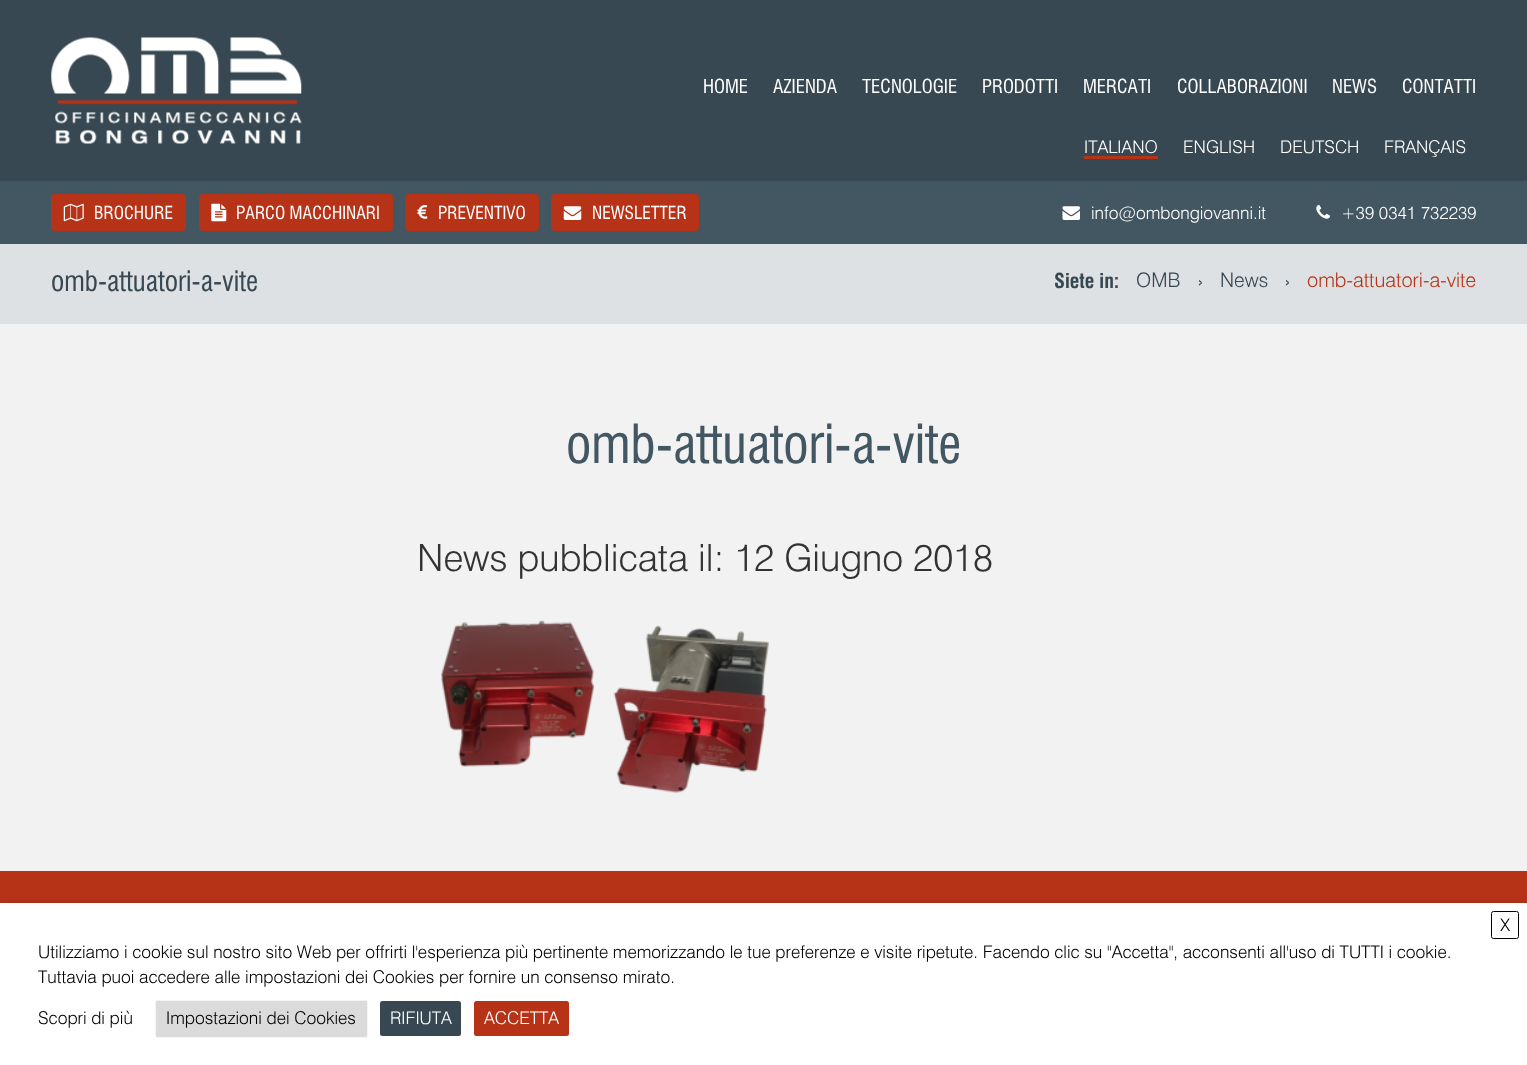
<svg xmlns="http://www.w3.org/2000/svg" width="1527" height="1065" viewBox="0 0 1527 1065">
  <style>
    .t1 { font: 18.75px 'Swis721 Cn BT'; fill: #fff; }
    .t2 { font: 300 17.5px 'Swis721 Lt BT'; fill: #fff; }
    .t3 { font: 17.5px 'Swis721 Cn BT'; fill: #fff; }
    .t4 { font: 27.5px 'Swis721 Cn BT'; fill: #374852; }
    .t5 { font: bold 20px 'Swis721 Cn BT'; fill: #374852; }
    .t6 { font: 300 20px 'Swis721 Lt BT'; fill: #374852; }
    .t7 { font: 300 20px 'Swis721 Lt BT'; fill: #b63318; }
    .t8 { font: 52.5px 'Swis721 Cn BT'; fill: #435763; }
    .t9 { font: 300 37.5px 'Swis721 Lt BT'; fill: #333; }
    .t10 { font: 300 17.5px 'Swis721 Lt BT'; fill: #000; }
  </style>
  <rect width="100%" height="100%" fill="#f2f2f2"/>
  <rect x="0" y="0" width="1527" height="181" fill="#374852"/>
  <image x="51" y="37" width="251" height="107" href="images/1.png"/>
  <text x="703" y="93" class="t1">HOME</text>
  <text x="773" y="93" class="t1">AZIENDA</text>
  <text x="862" y="93" class="t1">TECNOLOGIE</text>
  <text x="982" y="93" class="t1">PRODOTTI</text>
  <text x="1083" y="93" class="t1">MERCATI</text>
  <text x="1177" y="93" class="t1">COLLABORAZIONI</text>
  <text x="1332" y="93" class="t1">NEWS</text>
  <text x="1402" y="93" class="t1">CONTATTI</text>
  <rect x="1084" y="156" width="74" height="3" fill="#b63318"/>
  <text x="1084" y="153" class="t2">ITALIANO</text>
  <text x="1183" y="153" class="t2">ENGLISH</text>
  <text x="1280" y="153" class="t2">DEUTSCH</text>
  <text x="1384" y="153" class="t2">FRANÇAIS</text>
  <rect x="0" y="181" width="1527" height="63" fill="#435763"/>
  <rect x="51" y="194" width="135" height="37" rx="4" fill="#b63318"/>
  <image x="63" y="203" width="21" height="19" href="images/2.png"/>
  <text x="94" y="219" class="t3">BROCHURE</text>
  <rect x="199" y="194" width="194" height="37" rx="4" fill="#b63318"/>
  <image x="211" y="203" width="16" height="19" href="images/3.png"/>
  <text x="236" y="219" class="t3">PARCO MACCHINARI</text>
  <rect x="405" y="194" width="134" height="37" rx="4" fill="#b63318"/>
  <image x="417" y="205" width="11" height="14" href="images/4.png"/>
  <text x="438" y="219" class="t3">PREVENTIVO</text>
  <rect x="551" y="194" width="148" height="37" rx="4" fill="#b63318"/>
  <image x="563" y="206" width="19" height="14" href="images/5.png"/>
  <text x="592" y="219" class="t3">NEWSLETTER</text>
  <image x="1062" y="206" width="18" height="14" href="images/6.png"/>
  <text x="1091" y="219" class="t2">info@ombongiovanni.it</text>
  <image x="1316" y="205" width="14" height="14" href="images/7.png"/>
  <text x="1341" y="219" class="t2">+39 0341 732239</text>
  <rect x="0" y="244" width="1527" height="80" fill="#dee1e3"/>
  <text x="51" y="291" class="t4">omb-attuatori-a-vite</text>
  <text x="1054" y="288" class="t5">Siete in:</text>
  <text x="1136" y="287" class="t6">OMB</text>
  <text x="1198" y="288" class="t6">›</text>
  <text x="1220" y="287" class="t6">News</text>
  <text x="1285" y="288" class="t6">›</text>
  <text x="1307" y="287" class="t7">omb-attuatori-a-vite</text>
  <text x="566" y="463" class="t8">omb-attuatori-a-vite</text>
  <text x="417" y="571" class="t9">News pubblicata il: 12 Giugno 2018</text>
  <image x="441" y="620" width="328" height="173" href="images/8.png"/>
  <rect x="0" y="871" width="1527" height="32" fill="#b63318"/>
  <rect x="0" y="909" width="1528" height="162" fill="#00000080" filter="blur(6px)"/>
  <rect x="0" y="903" width="1527" height="162" fill="#fff"/>
  <rect x="1491.5" y="911.5" width="27" height="27" rx="2" fill="none" stroke="#000"/>
  <text x="1500" y="931" class="t10">X</text>
  <text x="38" y="958" class="t10">Utilizziamo i cookie sul nostro sito Web per offrirti l'esperienza più pertinente memorizzando le tue preferenze e visite ripetute. Facendo clic su "Accetta", acconsenti all'uso di TUTTI i cookie.</text>
  <text x="38" y="983" class="t10">Tuttavia puoi accedere alle impostazioni dei Cookies per fornire un consenso mirato.</text>
  <text x="38" y="1024" class="t10">Scopri di più</text>
  <rect x="155.5" y="1000.5" width="212" height="37" rx="2" fill="#dbdbdb" stroke="#f4f4f9"/>
  <text x="166" y="1024" class="t10">Impostazioni dei Cookies</text>
  <rect x="380" y="1001" width="81" height="35" rx="2.5" fill="#374852"/>
  <text x="390" y="1024" class="t2">RIFIUTA</text>
  <rect x="474" y="1001" width="95" height="35" rx="2.5" fill="#b63318"/>
  <text x="484" y="1024" class="t2">ACCETTA</text>
</svg>
